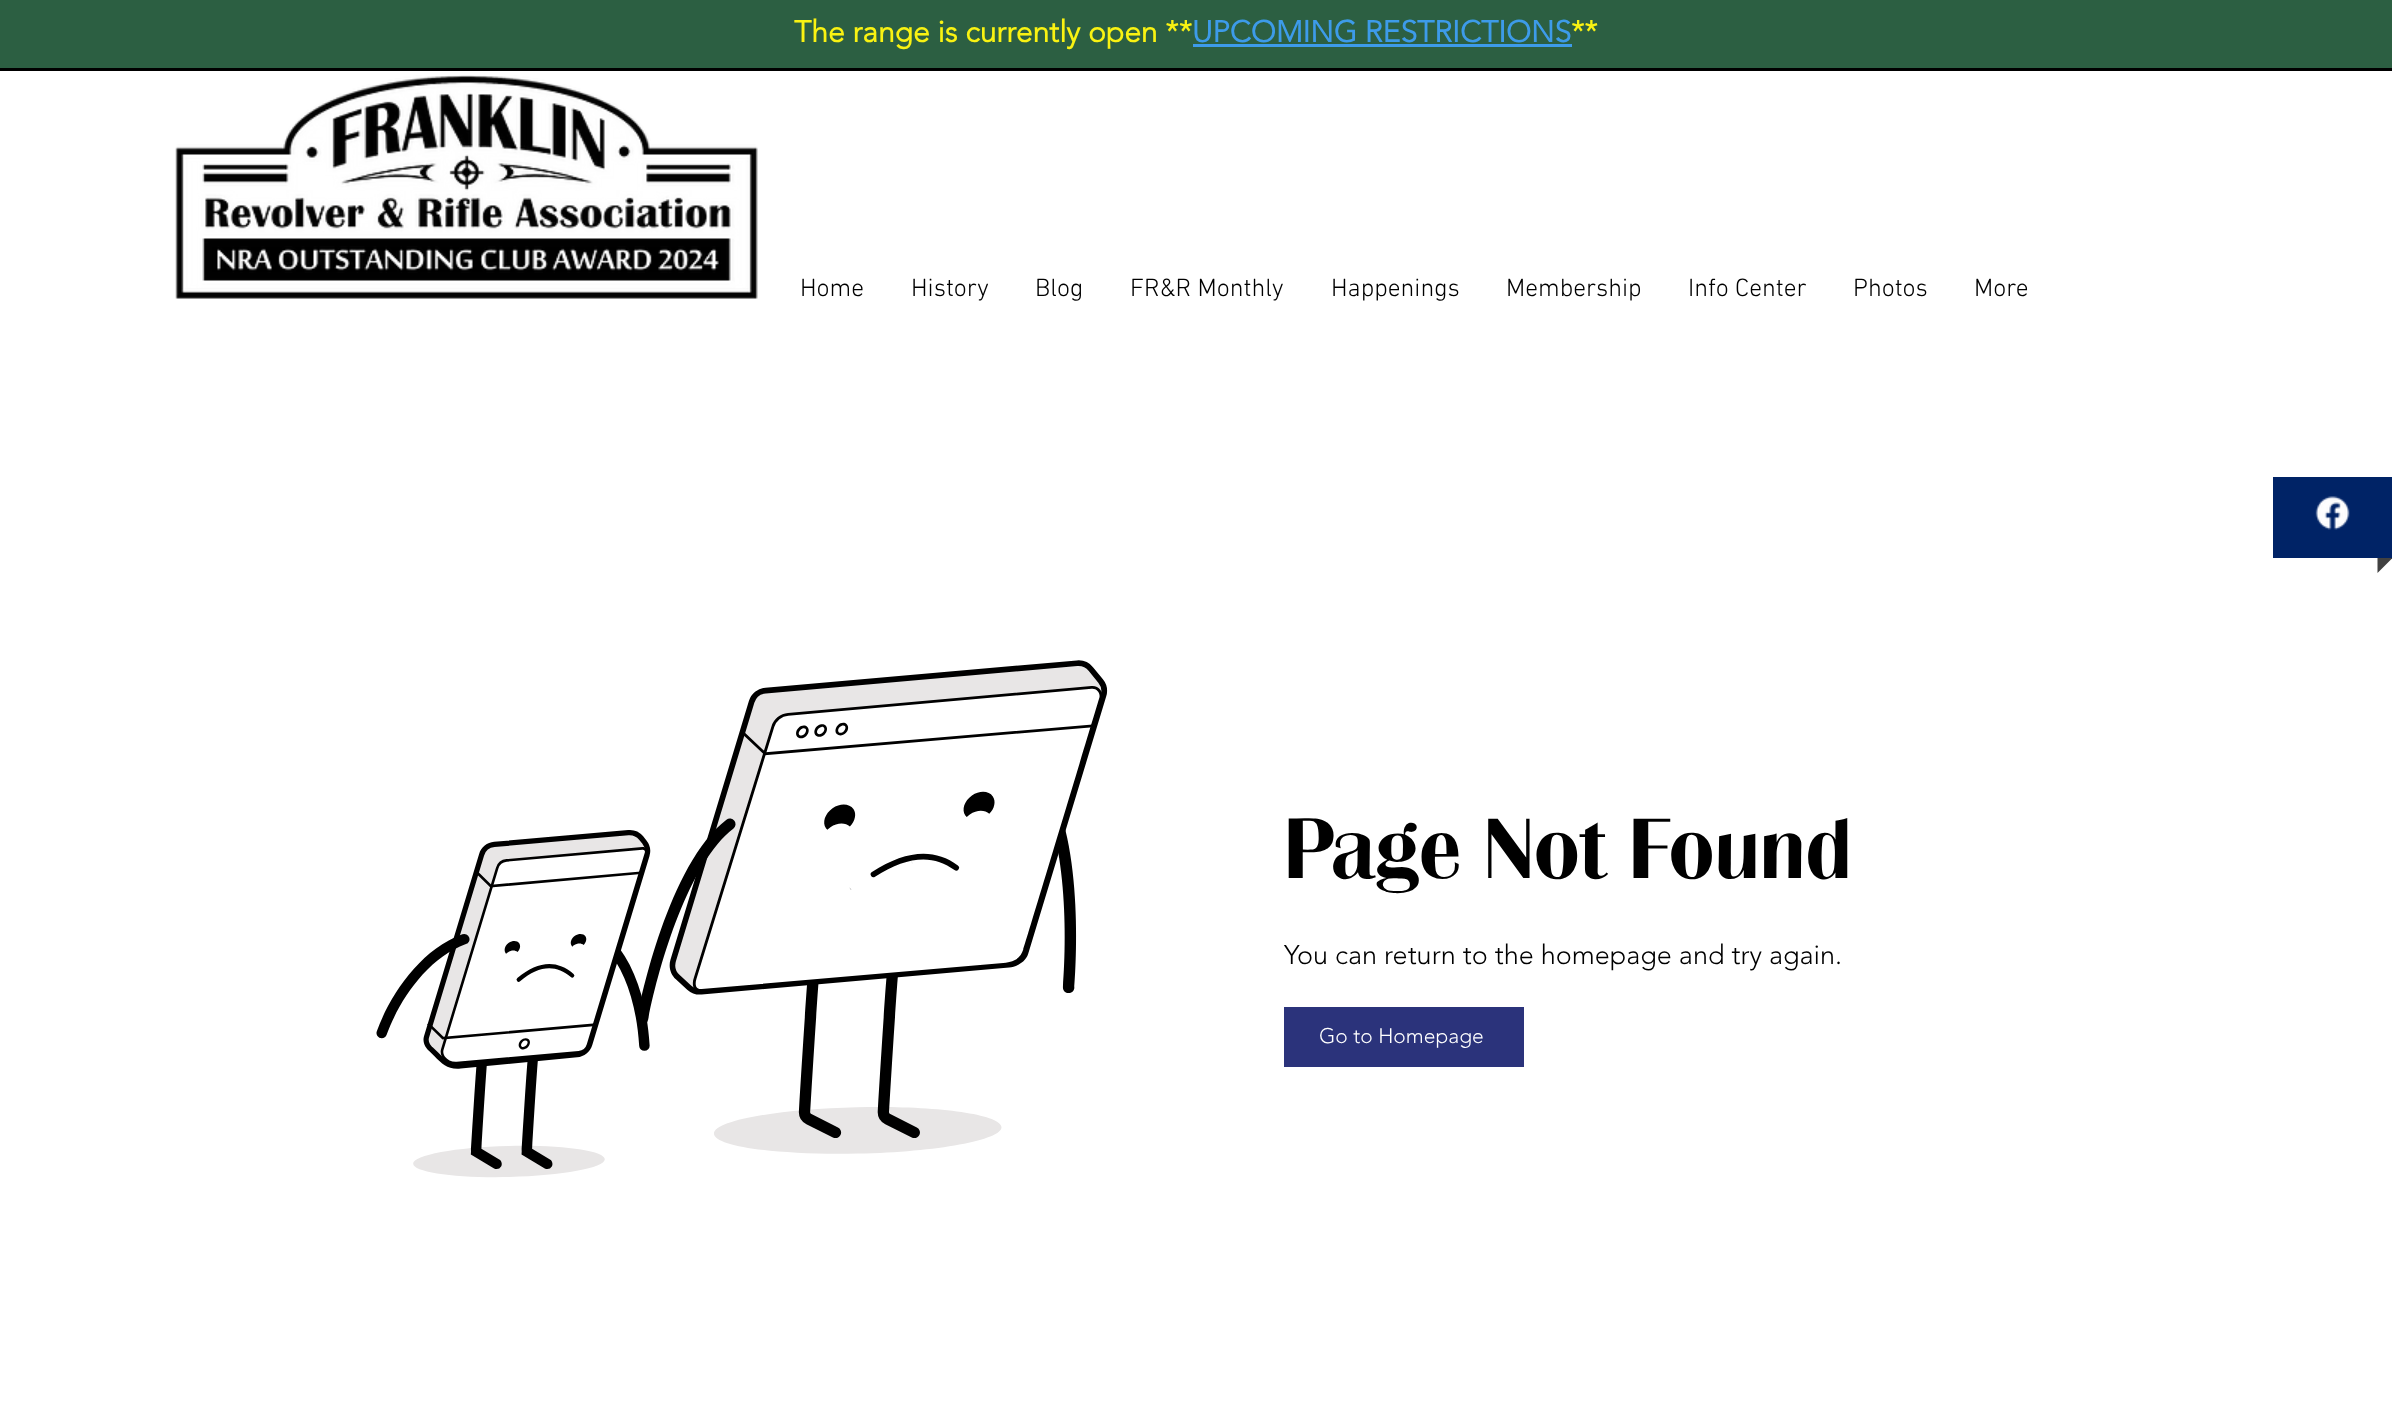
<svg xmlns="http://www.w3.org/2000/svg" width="2392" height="1418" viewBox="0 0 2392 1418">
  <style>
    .t1 { font: bold 30px 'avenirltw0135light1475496'; fill: #f9f212; }
    .t2 { font: bold 30px 'avenirltw0135light1475496'; fill: #3d9be9; }
    .t3 { font: 300 25.5px 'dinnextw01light'; fill: #000; }
    .t4 { font: 84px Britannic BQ; fill: #000; }
    .t5 { font: 300 27px 'avenirltw0135light1475496'; fill: #000; }
    .t6 { font: 300 21px 'avenirltw0135light1475496'; fill: #fff; }
  </style>
  <rect width="100%" height="100%" fill="#fff"/>
  <rect x="0" y="0" width="2392" height="68" fill="#2c5f42"/>
  <text x="794" y="42" class="t1">The range is currently open **</text>
  <rect x="1193" y="44" width="379" height="3" fill="#3d9be9"/>
  <text x="1192" y="42" class="t2">UPCOMING RESTRICTIONS</text>
  <text x="1571" y="42" class="t1">**</text>
  <rect x="0" y="68" width="2392" height="3" fill="#000"/>
  <image x="175" y="75" width="583" height="224" href="images/1.png"/>
  <text x="800" y="296" class="t3">Home</text>
  <text x="911" y="296" class="t3">History</text>
  <text x="1035" y="296" class="t3">Blog</text>
  <text x="1130" y="296" class="t3">FR&amp;R Monthly</text>
  <text x="1331" y="296" class="t3">Happenings</text>
  <text x="1506" y="296" class="t3">Membership</text>
  <text x="1688" y="296" class="t3">Info Center</text>
  <text x="1853" y="296" class="t3">Photos</text>
  <text x="1974" y="296" class="t3">More</text>
  <rect x="2273" y="477" width="119" height="81" fill="#002366"/>
  <image x="2315" y="496" width="35" height="34" href="images/2.png"/>
  <path d="M2377.5 558H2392.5L2377.5 573Z" fill="#414141"/>
  <image x="376" y="660" width="732" height="518" href="images/3.png"/>
  <text x="1284" y="878" class="t4">Page Not Found</text>
  <text x="1284" y="964" class="t5">You can return to the homepage and try again.</text>
  <rect x="1284" y="1007" width="240" height="60" fill="#2b337b"/>
  <text x="1319" y="1043" class="t6">Go to Homepage</text>
</svg>
